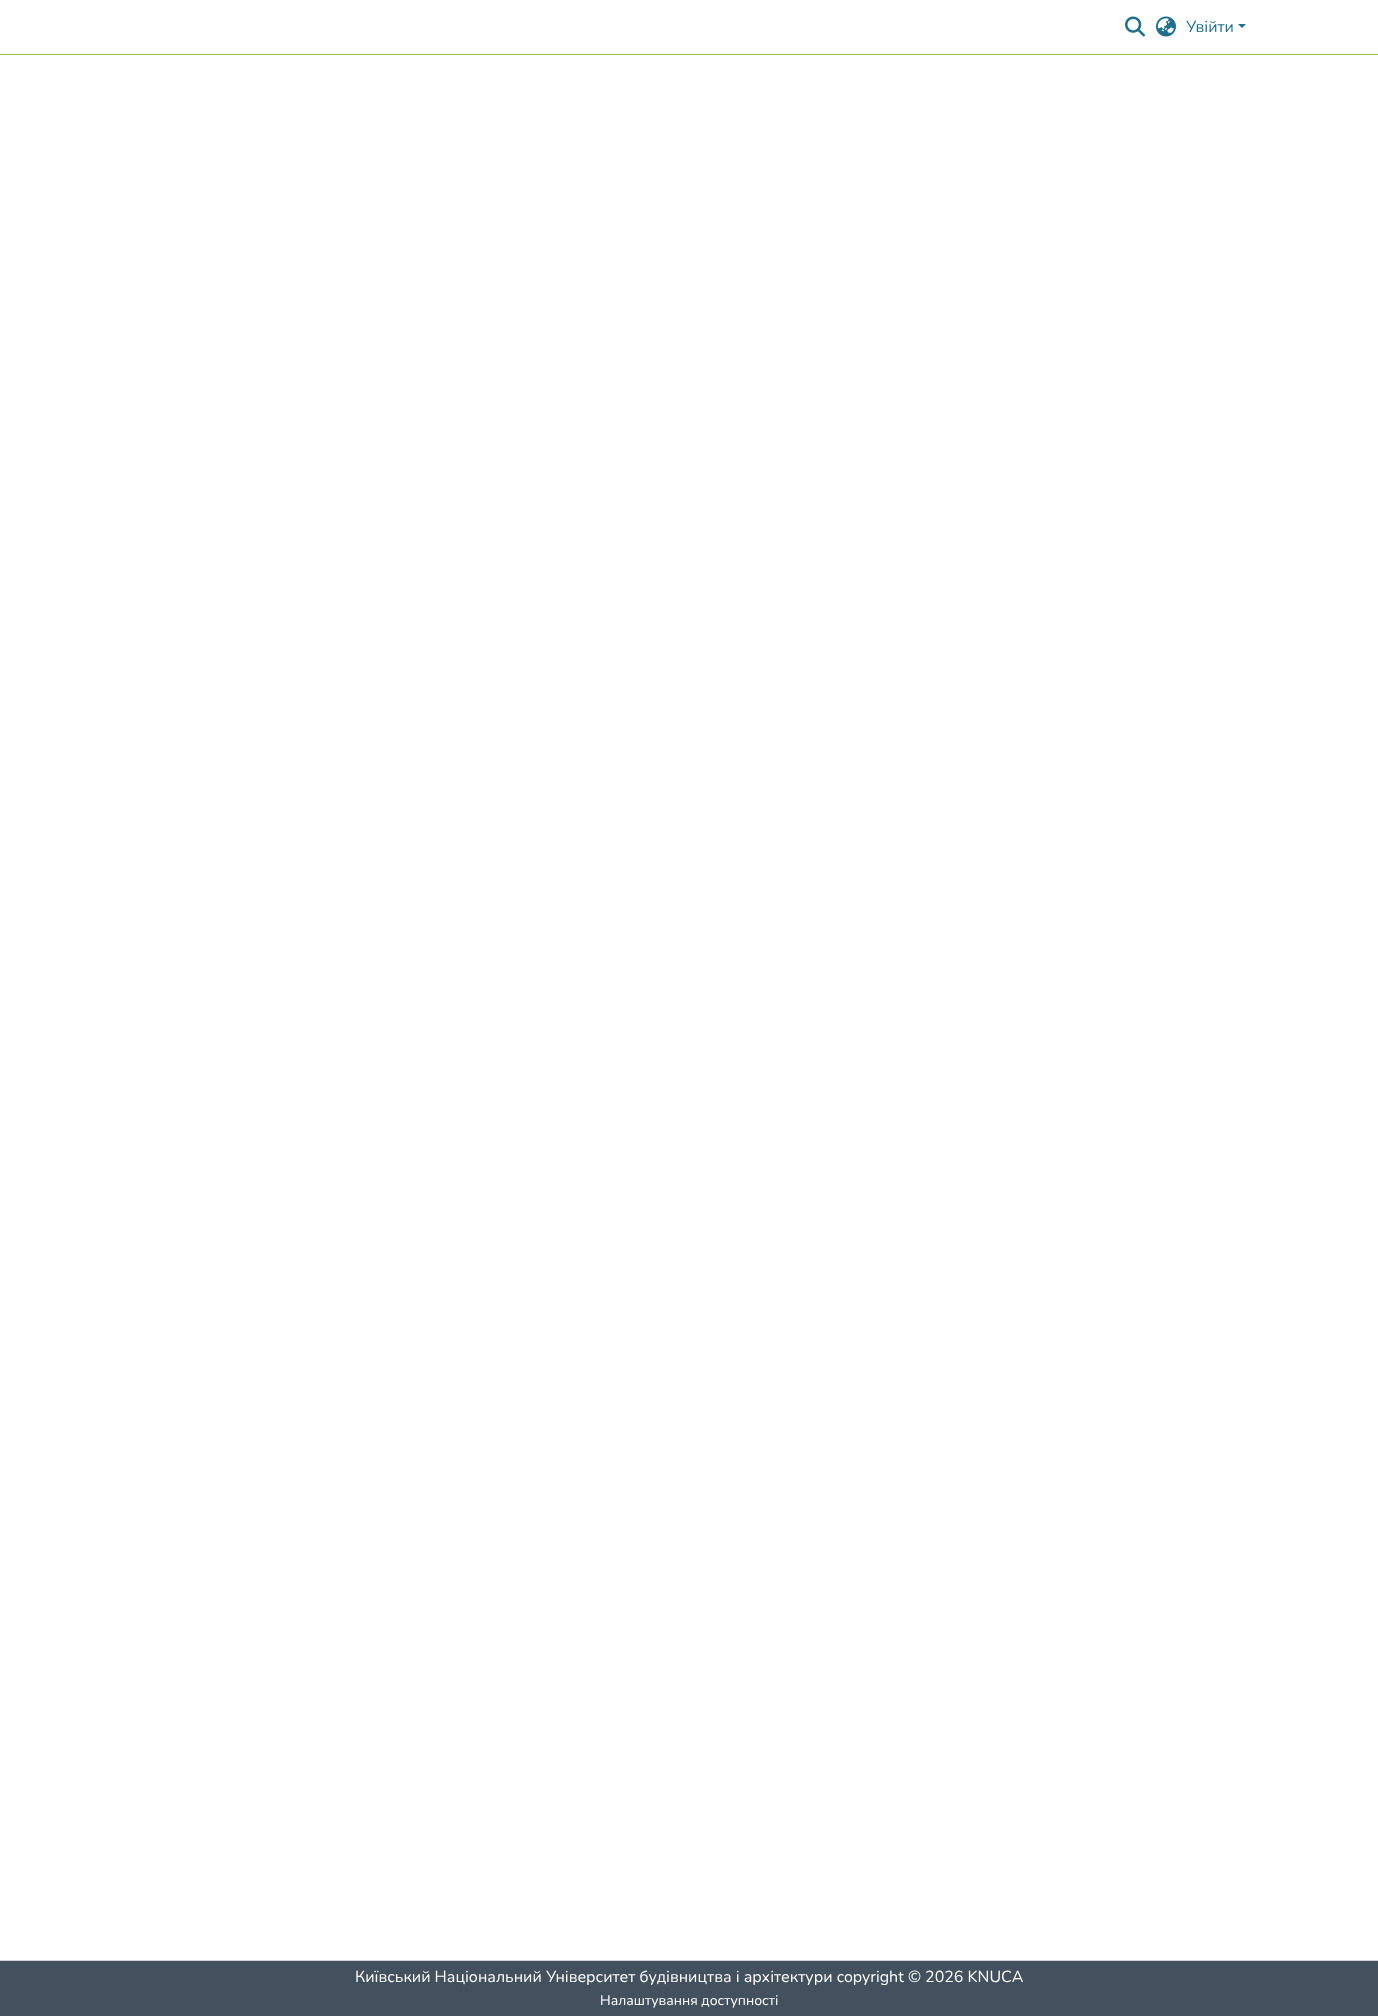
<svg xmlns="http://www.w3.org/2000/svg" width="1378" height="2016" viewBox="0 0 1378 2016">
  <style>
    .t1 { font: 16px Nunito; fill: #1e6f90; }
    .t2 { font: 16px Nunito; fill: #fff; }
    .t3 { font: 14px Nunito; fill: #fff; }
  </style>
  <rect width="100%" height="100%" fill="#fff"/>
  <rect x="0" y="54" width="1378" height="1" fill="#92c642"/>
  <image x="1125" y="16" width="20" height="21" href="images/1.png"/>
  <image x="1156" y="16" width="20" height="21" href="images/2.png"/>
  <text x="1186" y="32" class="t1">Увійти</text>
  <path d="M1238 24H1246L1242 28Z" fill="#1e6f90"/>
  <rect x="0" y="1961" width="1378" height="55" fill="#43515f"/>
  <rect x="0" y="1960" width="1378" height="1" fill="#ced4da"/>
  <text x="355" y="1982" class="t2">Київський Національний Університет будівництва і архітектури copyright © 2026 KNUCA</text>
  <text x="600" y="2005" class="t3">Налаштування доступності</text>
</svg>
